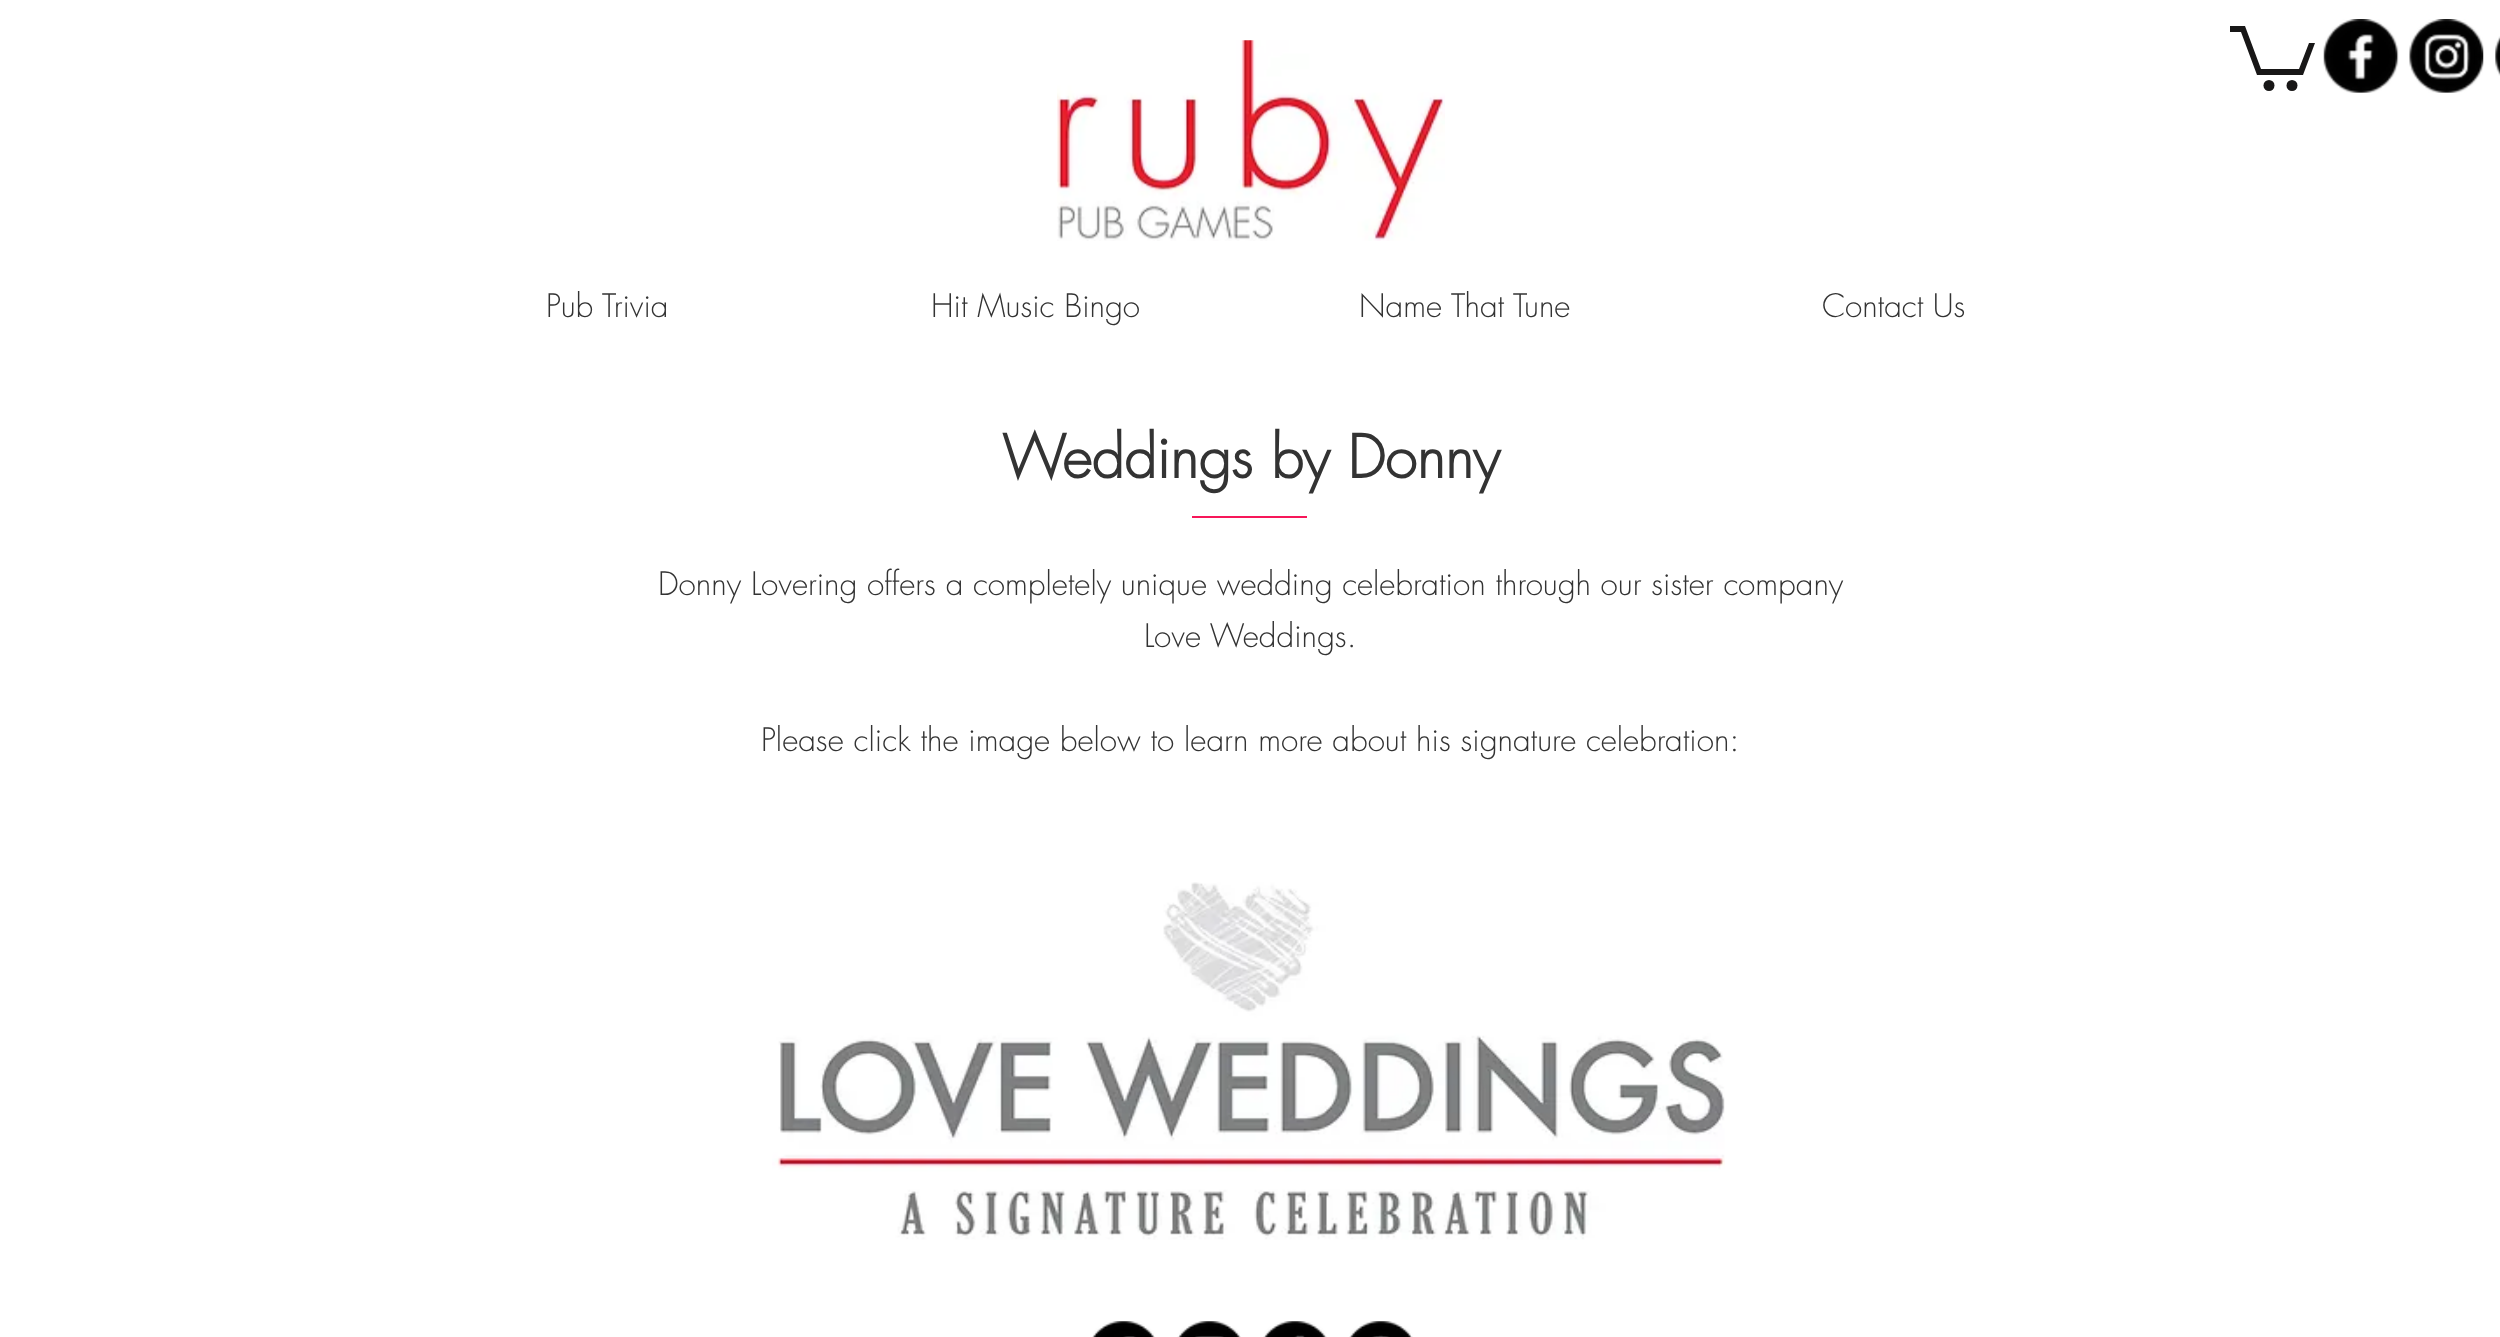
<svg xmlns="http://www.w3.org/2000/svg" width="2500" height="1337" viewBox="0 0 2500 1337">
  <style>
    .t1 { font: 300 31.5px futura; fill: #333; }
    .t2 { font: bold 57.75px futura; fill: #333; }
  </style>
  <rect width="100%" height="100%" fill="#fff"/>
  <image x="1057" y="40" width="388" height="201" href="images/1.png"/>
  <path d="M2315 43L2303 75H2257L2241 32H2230V26H2245L2261 69H2299L2309 43" fill="#181717"/>
  <circle cx="2292" cy="85.5" r="5.5" fill="#181717"/>
  <circle cx="2269" cy="85.5" r="5.5" fill="#181717"/>
  <image x="2323" y="19" width="76" height="74" href="images/2.png"/>
  <image x="2409" y="19" width="75" height="74" href="images/3.png"/>
  <image x="2495" y="36" width="5" height="40" href="images/4.png"/>
  <text x="546" y="317" class="t1">Pub Trivia</text>
  <text x="931" y="317" class="t1">Hit Music Bingo</text>
  <text x="1359" y="317" class="t1">Name That Tune</text>
  <text x="1822" y="317" class="t1">Contact Us</text>
  <text x="1002" y="478" class="t2">Weddings by Donny</text>
  <rect x="1192" y="516" width="115" height="2" fill="#f71659"/>
  <text x="658" y="595" class="t1">Donny Lovering offers a completely unique wedding celebration through our sister company</text>
  <text x="1144" y="647" class="t1">Love Weddings.</text>
  <text x="761" y="751" class="t1">Please click the image below to learn more about his signature celebration:</text>
  <image x="772" y="882" width="953" height="358" href="images/5.png"/>
  <image x="1092" y="1321" width="63" height="16" href="images/6.png"/>
  <image x="1177" y="1321" width="64" height="16" href="images/7.png"/>
  <image x="1263" y="1321" width="64" height="16" href="images/8.png"/>
  <image x="1349" y="1321" width="64" height="16" href="images/9.png"/>
</svg>
